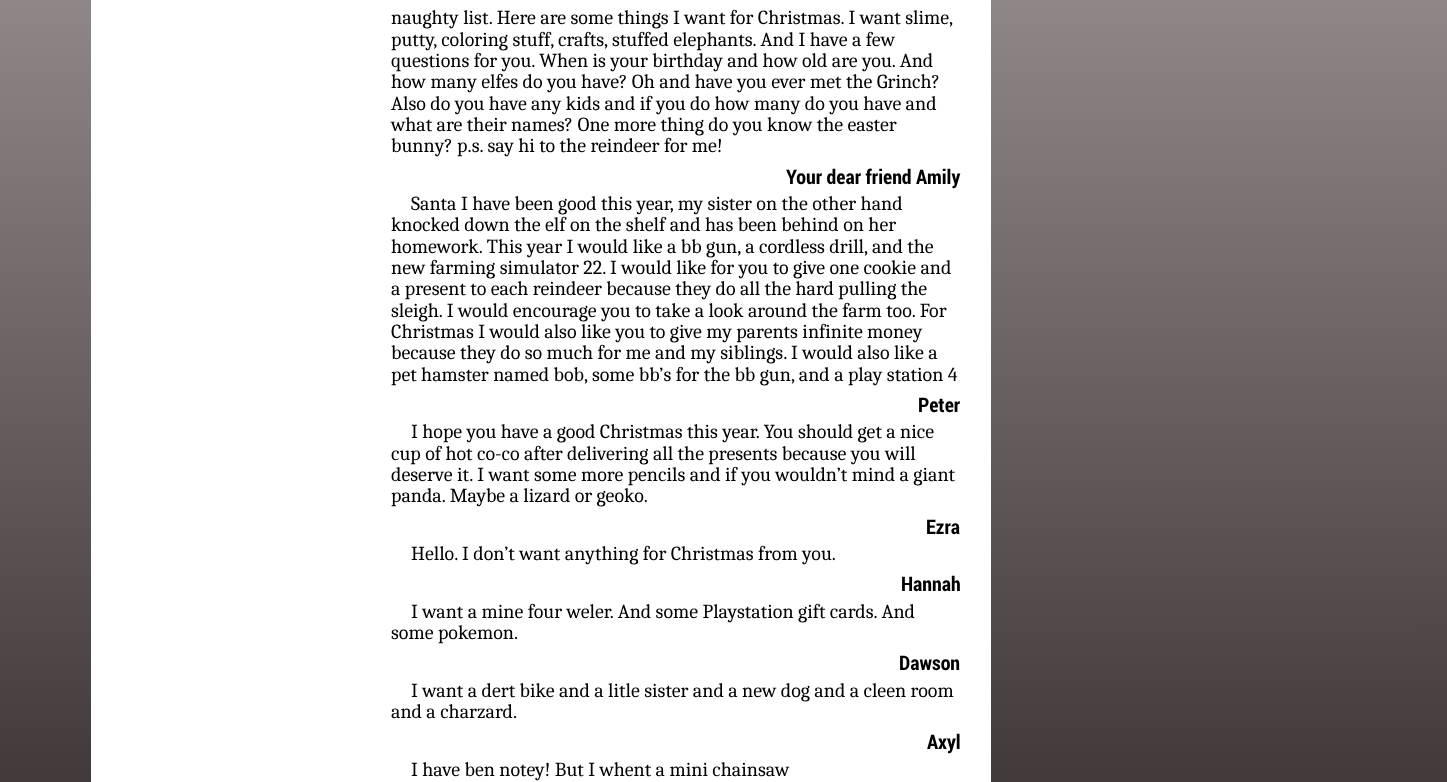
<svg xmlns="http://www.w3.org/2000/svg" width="1447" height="782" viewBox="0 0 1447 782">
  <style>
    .t1 { font: 20px Caladea; fill: #000; }
    .t2 { font: bold 20px Roboto Condensed; fill: #000; }
  </style>
  <defs>
    <linearGradient id="g1" gradientUnits="userSpaceOnUse" x1="723" y1="-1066" x2="724" y2="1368"><stop offset="0.1" stop-color="#dfd7d8"/><stop offset="0.9" stop-color="#1f1718"/></linearGradient>
  </defs>
  <rect width="100%" height="100%" fill="#fff"/>
  <rect x="0" y="0" width="1447" height="782" fill="url(#g1)"/>
  <rect x="91" y="0" width="900" height="782" fill="#fff"/>
  <text x="391" y="24" class="t1">naughty list. Here are some things I want for Christmas. I want slime,</text>
  <text x="391" y="46" class="t1">putty, coloring stuff, crafts, stuffed elephants. And I have a few</text>
  <text x="391" y="67" class="t1">questions for you. When is your birthday and how old are you. And</text>
  <text x="391" y="88" class="t1">how many elfes do you have? Oh and have you ever met the Grinch?</text>
  <text x="391" y="110" class="t1">Also do you have any kids and if you do how many do you have and</text>
  <text x="391" y="131" class="t1">what are their names? One more thing do you know the easter</text>
  <text x="391" y="152" class="t1">bunny? p.s. say hi to the reindeer for me!</text>
  <text x="786" y="184" class="t2">Your dear friend Amily</text>
  <text x="411" y="210" class="t1">Santa I have been good this year, my sister on the other hand</text>
  <text x="391" y="231" class="t1">knocked down the elf on the shelf and has been behind on her</text>
  <text x="391" y="253" class="t1">homework. This year I would like a bb gun, a cordless drill, and the</text>
  <text x="391" y="274" class="t1">new farming simulator 22. I would like for you to give one cookie and</text>
  <text x="391" y="295" class="t1">a present to each reindeer because they do all the hard pulling the</text>
  <text x="391" y="317" class="t1">sleigh. I would encourage you to take a look around the farm too. For</text>
  <text x="391" y="338" class="t1">Christmas I would also like you to give my parents infinite money</text>
  <text x="391" y="359" class="t1">because they do so much for me and my siblings. I would also like a</text>
  <text x="391" y="381" class="t1">pet hamster named bob, some bb’s for the bb gun, and a play station 4</text>
  <text x="918" y="412" class="t2">Peter</text>
  <text x="411" y="438" class="t1">I hope you have a good Christmas this year. You should get a nice</text>
  <text x="391" y="460" class="t1">cup of hot co-co after delivering all the presents because you will</text>
  <text x="391" y="481" class="t1">deserve it. I want some more pencils and if you wouldn’t mind a giant</text>
  <text x="391" y="502" class="t1">panda. Maybe a lizard or geoko.</text>
  <text x="926" y="534" class="t2">Ezra</text>
  <text x="411" y="560" class="t1">Hello. I don’t want anything for Christmas from you.</text>
  <text x="901" y="591" class="t2">Hannah</text>
  <text x="411" y="618" class="t1">I want a mine four weler. And some Playstation gift cards. And</text>
  <text x="391" y="639" class="t1">some pokemon.</text>
  <text x="899" y="670" class="t2">Dawson</text>
  <text x="411" y="697" class="t1">I want a dert bike and a litle sister and a new dog and a cleen room</text>
  <text x="391" y="718" class="t1">and a charzard.</text>
  <text x="927" y="749" class="t2">Axyl</text>
  <text x="411" y="776" class="t1">I have ben notey! But I whent a mini chainsaw</text>
</svg>
